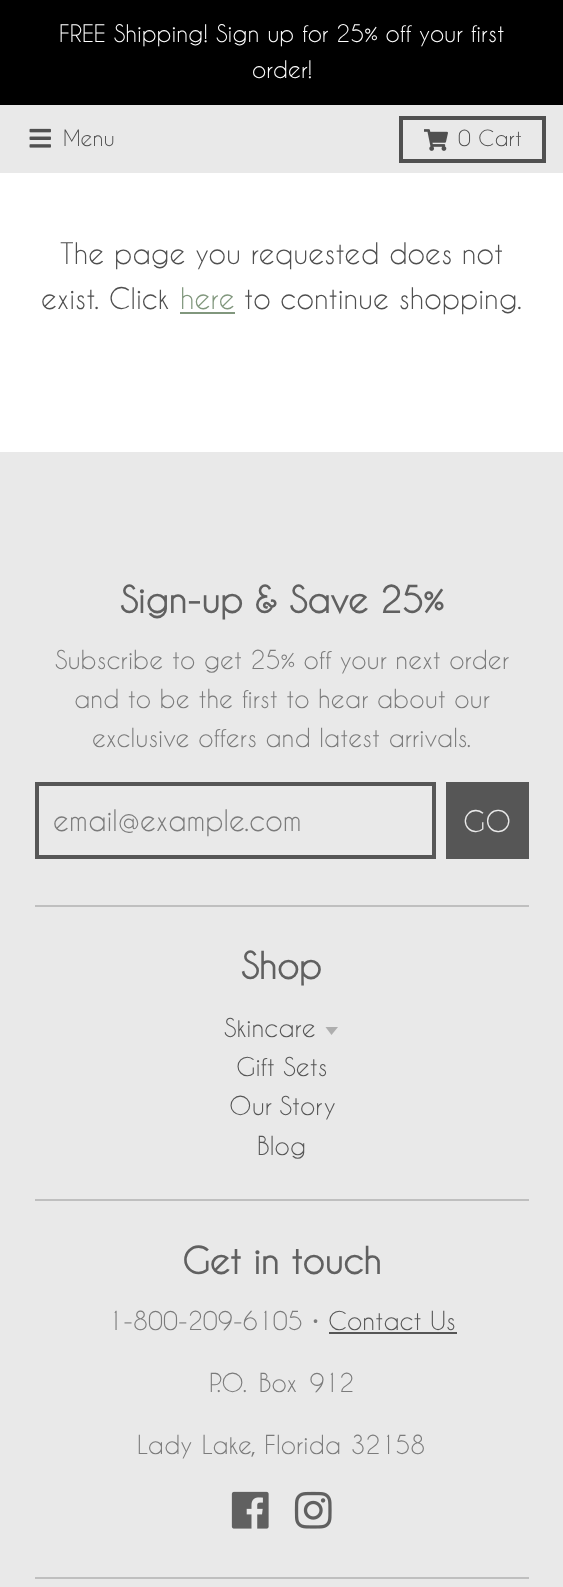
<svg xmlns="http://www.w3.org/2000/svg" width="563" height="1587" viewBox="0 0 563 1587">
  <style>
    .t1 { font: 22.75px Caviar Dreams; fill: #fff; }
    .t2 { font: 21px Caviar Dreams; fill: #4f4f4f; }
    .t3 { font: 28px Caviar Dreams; fill: #4f4f4f; }
    .t4 { font: 28px Caviar Dreams; fill: #81977d; }
    .t5 { font: bold 35px Caviar Dreams; fill: #606060; }
    .t6 { font: 24.5px Caviar Dreams; fill: #7b7b7b; }
    .t7 { font: 28px Caviar Dreams; fill: #7b7b7b; }
    .t8 { font: 28px Caviar Dreams; fill: #e9e9e9; }
    .t9 { font: 24.5px Caviar Dreams; fill: #565656; }
  </style>
  <rect width="100%" height="100%" fill="#fff"/>
  <rect x="0" y="0" width="563" height="105" fill="#000"/>
  <text x="59" y="42" class="t1">FREE Shipping! Sign up for 25% off your first</text>
  <text x="252" y="78" class="t1">order!</text>
  <rect x="0" y="105" width="563" height="68" fill="#e9e9e9"/>
  <image x="29" y="128" width="22" height="20" href="images/1.png"/>
  <text x="63" y="146" class="t2">Menu</text>
  <rect x="401" y="118" width="143" height="43" fill="none" stroke="#505050" stroke-width="4"/>
  <image x="424" y="129" width="24" height="22" href="images/2.png"/>
  <text x="458" y="146" class="t2">0 Cart</text>
  <text x="60" y="264" class="t3">The page you requested does not</text>
  <text x="41" y="309" word-spacing="1" class="t3">exist. Click</text>
  <text x="180" y="309" class="t4">here</text>
  <rect x="180" y="312" width="55" height="2" fill="#81977d"/>
  <text x="244" y="309" class="t3">to continue shopping.</text>
  <rect x="0" y="452" width="563" height="1135" fill="#e9e9e9"/>
  <text x="120" y="613" class="t5">Sign-up &amp; Save 25%</text>
  <text x="55" y="669" class="t6">Subscribe to get 25% off your next order</text>
  <text x="74" y="708" class="t6">and to be the first to hear about our</text>
  <text x="92" y="747" class="t6">exclusive offers and latest arrivals.</text>
  <rect x="35" y="905" width="494" height="2" fill="#bfbfbf"/>
  <rect x="37" y="784" width="397" height="73" fill="none" stroke="#565656" stroke-width="4"/>
  <text x="53" y="831" class="t7">email@example.com</text>
  <rect x="446" y="782" width="83" height="77" fill="#565656"/>
  <text x="463" y="832" class="t8">GO</text>
  <text x="241" y="979" class="t5">Shop</text>
  <rect x="35" y="1199" width="494" height="2" fill="#bfbfbf"/>
  <text x="224" y="1037" class="t9">Skincare</text>
  <path d="M325.5 1027L331.5 1035L338 1027Z" fill="#aeaeae"/>
  <text x="236" y="1076" class="t9">Gift Sets</text>
  <text x="229" y="1115" word-spacing="-1" class="t9">Our Story</text>
  <text x="257" y="1155" class="t9">Blog</text>
  <text x="182" y="1274" class="t5">Get in touch</text>
  <text x="108" y="1330" class="t6">1-800-209-6105 •</text>
  <text x="328" y="1330" class="t9">Contact Us</text>
  <rect x="329" y="1332" width="128" height="2" fill="#565656"/>
  <text x="209" y="1392" word-spacing="4" class="t6">P.O. Box 912</text>
  <text x="137" y="1454" word-spacing="1" class="t6">Lady Lake, Florida 32158</text>
  <rect x="35" y="1577" width="494" height="2" fill="#bfbfbf"/>
  <image x="231" y="1491" width="38" height="38" href="images/3.png"/>
  <image x="294" y="1491" width="38" height="38" href="images/4.png"/>
</svg>
